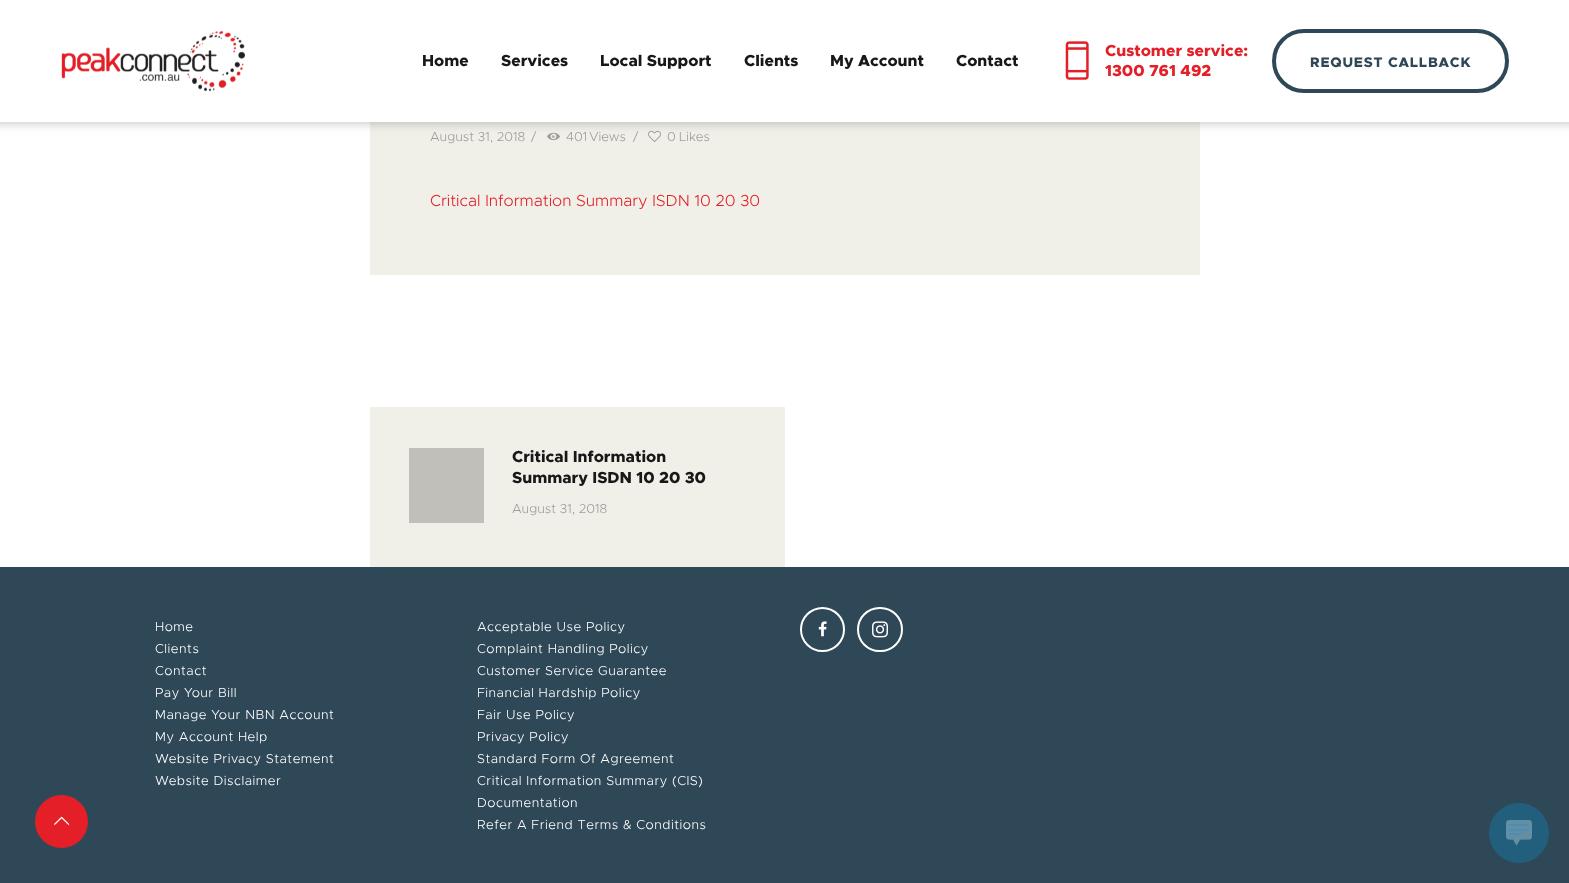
<svg xmlns="http://www.w3.org/2000/svg" width="1569" height="883" viewBox="0 0 1569 883">
  <style>
    .t1 { font: 800 16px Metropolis; fill: #181818; }
    .t2 { font: 800 16px Metropolis; fill: #e41f27; }
    .t3 { font: 800 14px Metropolis; letter-spacing: 0.8px; fill: #2f4858; }
    .t4 { font: 300 13px Metropolis; fill: #9d9d9d; }
    .t5 { font: 300 16px Metropolis; fill: #e41f27; }
    .t6 { font: 300 13px Metropolis; letter-spacing: 0.5px; fill: #fff; }
  </style>
  <rect width="100%" height="100%" fill="#fff"/>
  <rect x="0" y="567" width="1569" height="316" fill="#2f4858"/>
  <circle cx="61.5" cy="821.5" r="26.5" fill="#e41f27"/>
  <image x="54" y="816" width="16" height="9" href="images/1.png"/>
  <rect x="370" y="122" width="830" height="153" fill="#f0efe8"/>
  <image x="547" y="132" width="13" height="9" href="images/4.png"/>
  <image x="648" y="130" width="13" height="12" href="images/5.png"/>
  <rect x="-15" y="2" width="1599" height="122" fill="#00000033" filter="blur(5px)"/>
  <rect x="0" y="0" width="1569" height="122" fill="#fff"/>
  <image x="61" y="30" width="184" height="61" href="images/2.png"/>
  <text x="422" y="66" class="t1">Home</text>
  <text x="501" y="66" class="t1">Services</text>
  <text x="600" y="66" class="t1">Local Support</text>
  <text x="744" y="66" class="t1">Clients</text>
  <text x="830" y="66" class="t1">My Account</text>
  <text x="956" y="66" class="t1">Contact</text>
  <image x="1065" y="41" width="24" height="39" href="images/3.png"/>
  <text x="1105" y="56" class="t2">Customer service:</text>
  <text x="1105" y="76" class="t2">1300 761 492</text>
  <rect x="1274" y="31" width="233" height="60" rx="30" fill="none" stroke="#2f4858" stroke-width="4"/>
  <text x="1310" y="67" class="t3">REQUEST CALLBACK</text>
  <text x="430" y="141" class="t4">August 31, 2018</text>
  <text x="531" y="141" class="t4">/</text>
  <text x="566" y="141" class="t4">401</text>
  <text x="589" y="141" class="t4">Views</text>
  <text x="633" y="141" class="t4">/</text>
  <text x="667" y="141" class="t4">0</text>
  <text x="679" y="141" class="t4">Likes</text>
  <text x="430" y="206" class="t5">Critical Information Summary ISDN 10 20 30</text>
  <rect x="370" y="407" width="415" height="160" fill="#f0efe8"/>
  <rect x="409" y="448" width="75" height="75" fill="#c0bfba"/>
  <text x="512" y="462" class="t1">Critical Information</text>
  <text x="512" y="483" class="t1">Summary ISDN 10 20 30</text>
  <text x="512" y="513" class="t4">August 31, 2018</text>
  <text x="155" y="631" class="t6">Home</text>
  <text x="155" y="653" class="t6">Clients</text>
  <text x="155" y="675" class="t6">Contact</text>
  <text x="155" y="697" class="t6">Pay Your Bill</text>
  <text x="155" y="719" class="t6">Manage Your NBN Account</text>
  <text x="155" y="741" class="t6">My Account Help</text>
  <text x="155" y="763" class="t6">Website Privacy Statement</text>
  <text x="155" y="785" class="t6">Website Disclaimer</text>
  <text x="477" y="631" class="t6">Acceptable Use Policy</text>
  <text x="477" y="653" class="t6">Complaint Handling Policy</text>
  <text x="477" y="675" class="t6">Customer Service Guarantee</text>
  <text x="477" y="697" class="t6">Financial Hardship Policy</text>
  <text x="477" y="719" class="t6">Fair Use Policy</text>
  <text x="477" y="741" class="t6">Privacy Policy</text>
  <text x="477" y="763" class="t6">Standard Form Of Agreement</text>
  <text x="477" y="785" class="t6">Critical Information Summary (CIS)</text>
  <text x="477" y="807" class="t6">Documentation</text>
  <text x="477" y="829" class="t6">Refer A Friend Terms &amp; Conditions</text>
  <circle cx="822.5" cy="629.5" r="21.5" fill="none" stroke="#fff" stroke-width="2"/>
  <rect x="858" y="608" width="44" height="43" rx="21.5" fill="none" stroke="#fff" stroke-width="2"/>
  <image x="818" y="621" width="9" height="16" href="images/6.png"/>
  <image x="872" y="621" width="16" height="17" href="images/7.png"/>
  <circle cx="1519" cy="833" r="30" fill="#225f7d"/>
  <image x="1506" y="820" width="26" height="26" href="images/8.png"/>
</svg>
